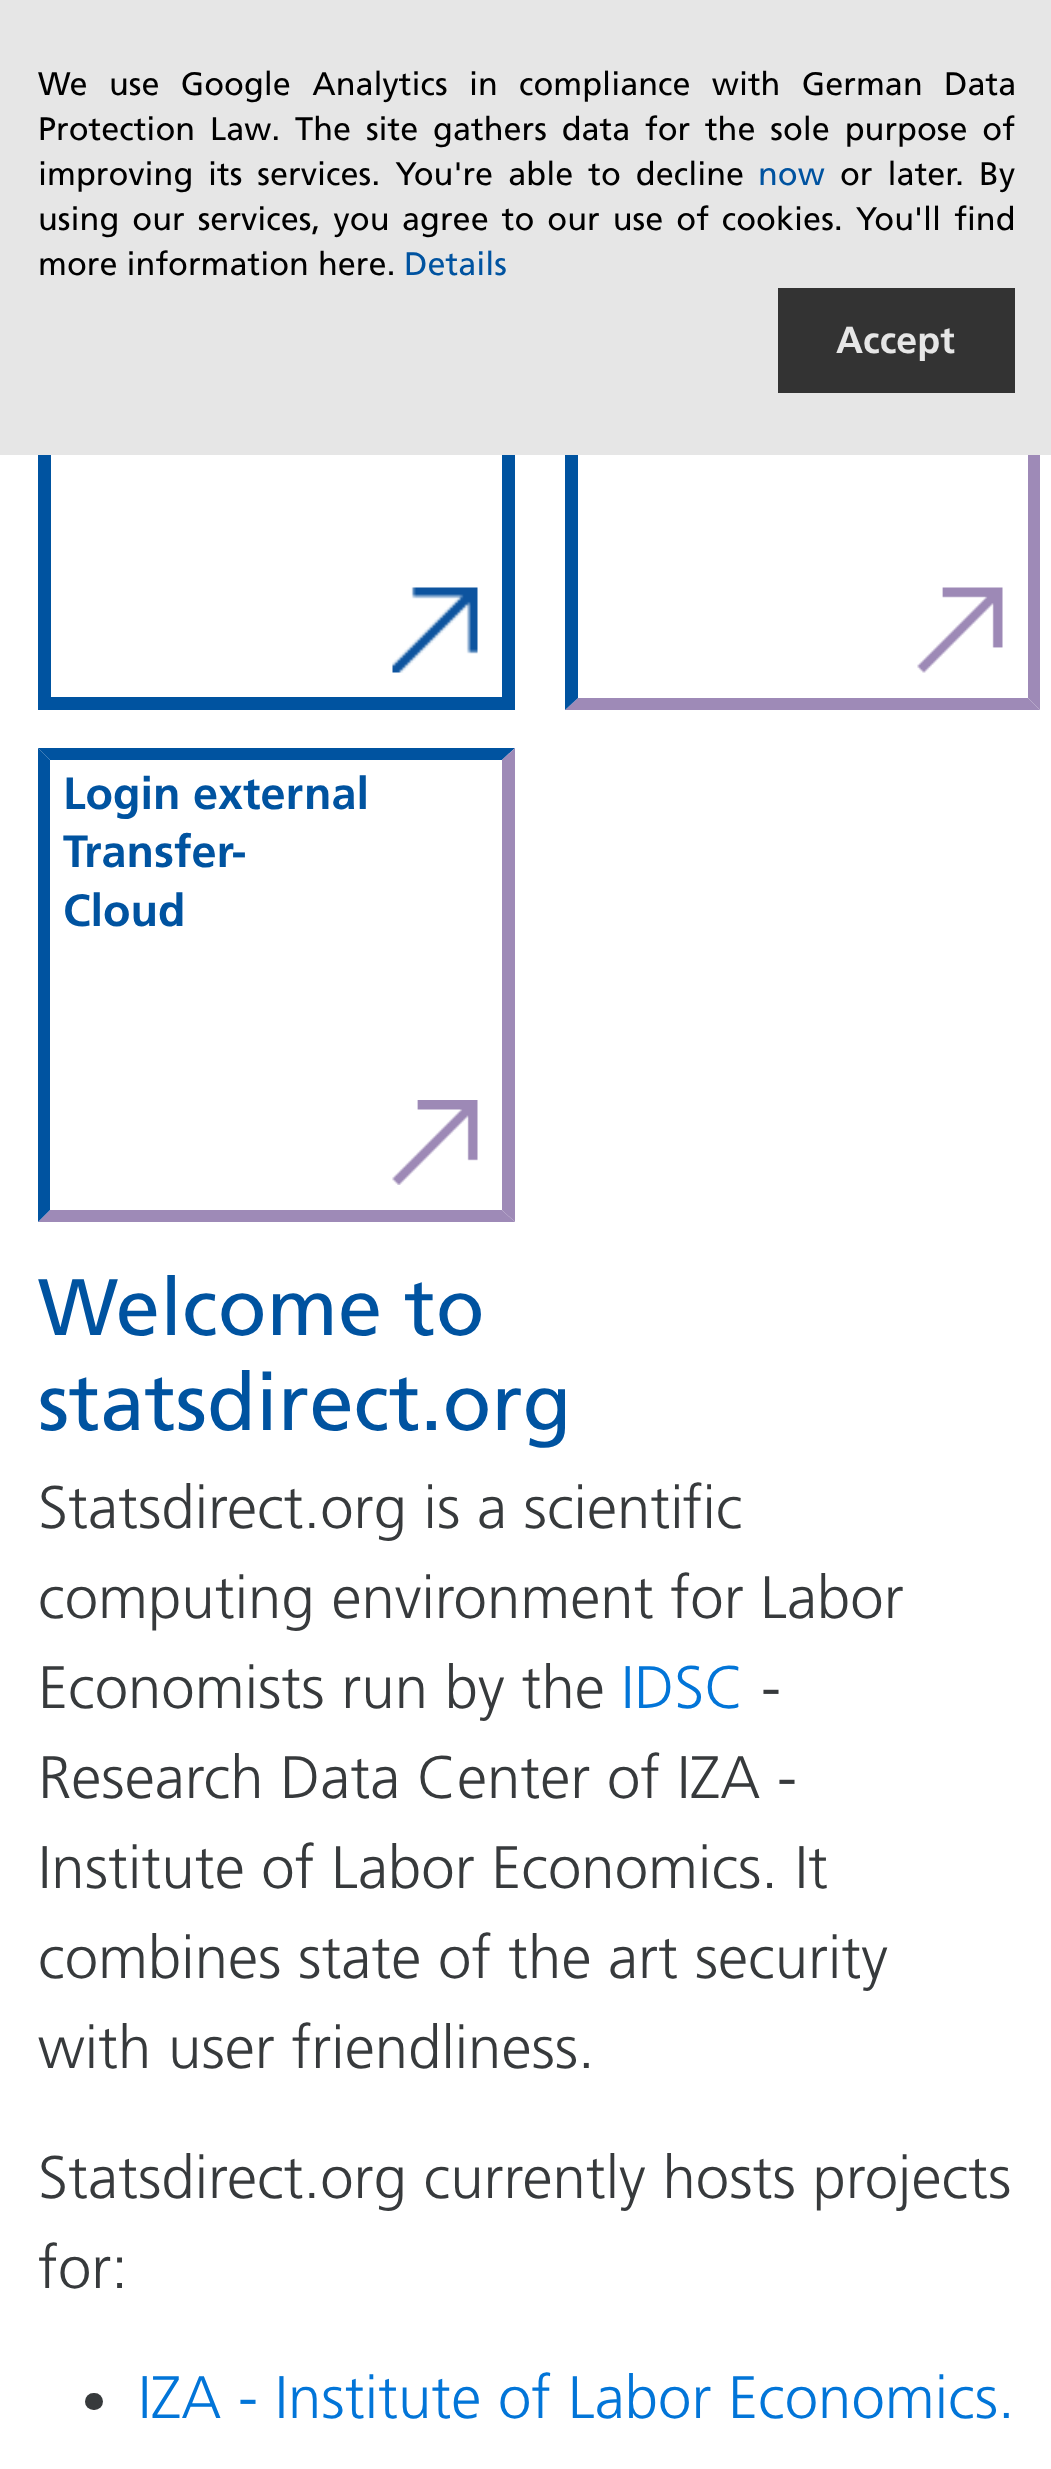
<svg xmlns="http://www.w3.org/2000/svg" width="1051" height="2469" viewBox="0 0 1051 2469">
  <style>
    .t1 { font: 32.5px frutiger; fill: #000; }
    .t2 { font: 32.5px frutiger; fill: #0053a0; }
    .t3 { font: bold 37.5px frutiger; fill: #e6e6e6; }
    .t4 { font: bold 45px frutiger; fill: #0053a0; }
    .t5 { font: 80px frutiger; fill: #0053a0; }
    .t6 { font: 300 60px frutiger; fill: #373a3c; }
    .t7 { font: 300 60px frutiger; fill: #0275d8; }
  </style>
  <rect width="100%" height="100%" fill="#fff"/>
  <rect x="44.5" y="239.5" width="464" height="464" fill="none" stroke="#0053a0" stroke-width="13"/>
  <path d="M1040 232V710L1028 698V245Z" fill="#9e8ab7"/>
  <path d="M1040 710H565L578 698H1028Z" fill="#9e8ab7"/>
  <path d="M565 710V232L578 245V698Z" fill="#0053a0"/>
  <rect x="0" y="0" width="1051" height="455" fill="#e6e6e6"/>
  <text x="38" y="95" word-spacing="12.25" class="t1">We use Google Analytics in compliance with German Data</text>
  <text x="38" y="140" word-spacing="5.75" class="t1">Protection Law. The site gathers data for the sole purpose of</text>
  <text x="38" y="185" class="t1">improving</text>
  <text x="208" y="185" word-spacing="6" class="t1">its services. You're able to decline</text>
  <text x="758" y="185" class="t2">now</text>
  <text x="840" y="185" word-spacing="6" class="t1">or later. By</text>
  <text x="38" y="230" word-spacing="4" class="t1">using our services, you</text>
  <text x="402" y="230" word-spacing="4" class="t1">agree to our use of cookies. You'll find</text>
  <text x="38" y="275" class="t1">more information here.</text>
  <text x="404" y="275" class="t2">Details</text>
  <rect x="778" y="288" width="237" height="105" fill="#333"/>
  <text x="836" y="353" class="t3">Accept</text>
  <image x="392" y="587" width="86" height="86" href="images/1.png"/>
  <image x="917" y="587" width="86" height="86" href="images/2.png"/>
  <path d="M38 748H515L502 760H50Z" fill="#0053a0"/>
  <path d="M515 748V1222L502 1210V760Z" fill="#9e8ab7"/>
  <path d="M515 1222H38L50 1210H502Z" fill="#9e8ab7"/>
  <path d="M38 1222V748L50 760V1210Z" fill="#0053a0"/>
  <text x="63" y="809" class="t4">Login external</text>
  <text x="63" y="867" class="t4">Transfer-</text>
  <text x="63" y="926" class="t4">Cloud</text>
  <image x="392" y="1100" width="86" height="85" href="images/3.png"/>
  <text x="38" y="1335" class="t5">Welcome to</text>
  <text x="38" y="1430" class="t5">statsdirect.org</text>
  <text x="38" y="1528" class="t6">Statsdirect.org is a scientific</text>
  <text x="38" y="1618" class="t6">computing environment for Labor</text>
  <text x="38" y="1708" class="t6">Economists run by the</text>
  <text x="621" y="1708" class="t7">IDSC</text>
  <text x="761" y="1708" class="t6">-</text>
  <text x="38" y="1798" class="t6">Research Data Center of IZA -</text>
  <text x="38" y="1888" class="t6">Institute of Labor Economics. It</text>
  <text x="38" y="1978" class="t6">combines state of the art security</text>
  <text x="38" y="2068" class="t6">with user friendliness.</text>
  <text x="38" y="2198" class="t6">Statsdirect.org currently hosts projects</text>
  <text x="38" y="2288" class="t6">for:</text>
  <rect x="85" y="2393" width="18" height="17" rx="8.5" fill="#373a3c"/>
  <text x="138" y="2418" class="t7">IZA - Institute of Labor Economics.</text>
</svg>
